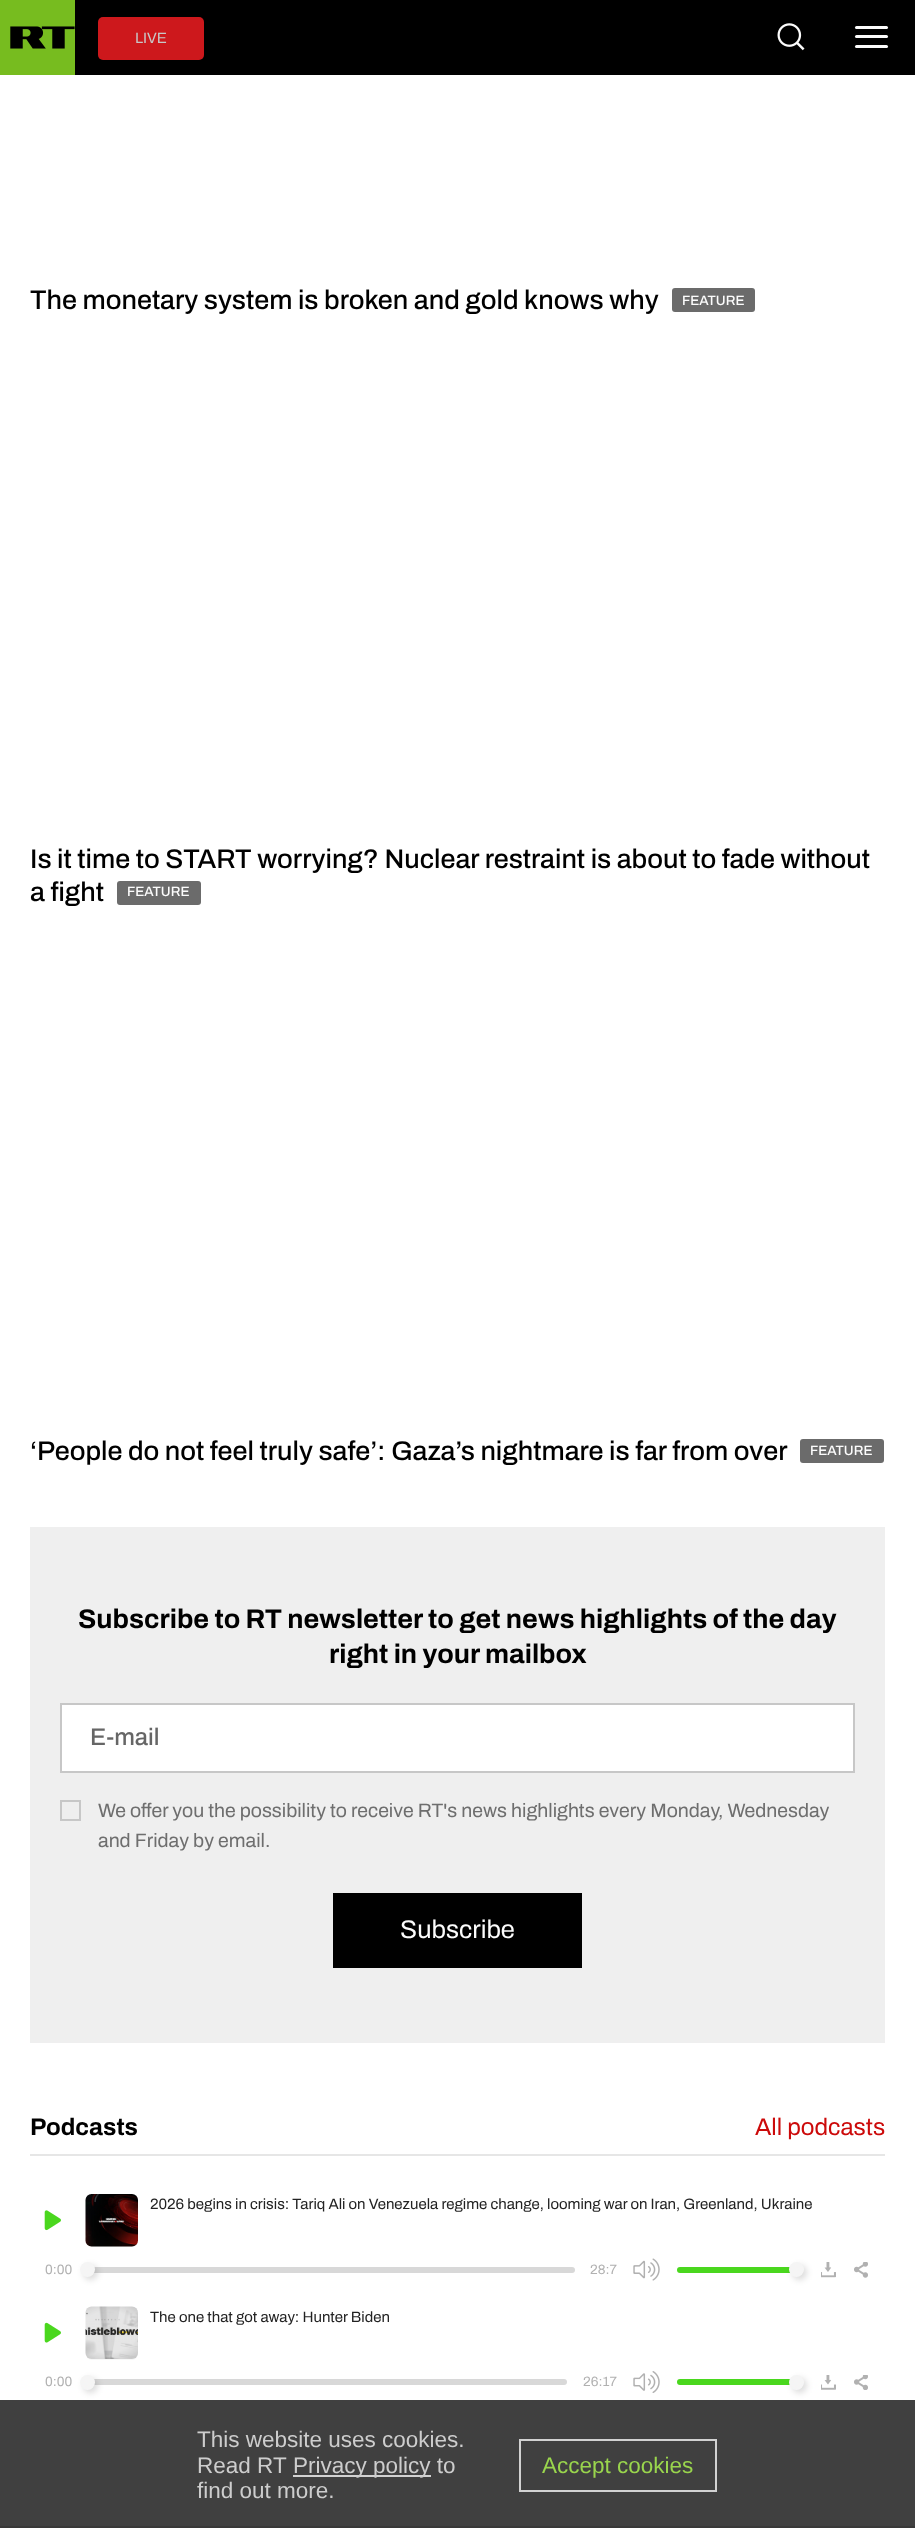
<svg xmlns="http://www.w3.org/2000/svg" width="915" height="2528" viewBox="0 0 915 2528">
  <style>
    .t1 { font: 15px Archivo; fill: #c7c7c7; }
    .t2 { font: 500 27px Archivo; fill: #000; }
    .t3 { font: 500 13.5px Archivo; fill: #fcfcfc; }
    .t4 { font: bold 27px Archivo; fill: #000; }
    .t5 { font: 500 24px Archivo; fill: #666; }
    .t6 { font: 19.5px Archivo; fill: #6e6e6e; }
    .t7 { font: 25.5px Archivo; fill: #fcfcfc; }
    .t8 { font: bold 24px Archivo; fill: #000; }
    .t9 { font: 24px Archivo; fill: #cc0a0a; }
    .t10 { font: 15px Archivo; fill: #232323; }
    .t11 { font: 13.5px Archivo; fill: #b1b1b1; }
    .t12 { font: 22.5px Liberation Sans; fill: #cdcdcd; }
    .t13 { font: 22.5px Liberation Sans; fill: #99d54d; }
  </style>
  <rect width="100%" height="100%" fill="#fff"/>
  <rect x="75" y="0" width="840" height="75" fill="#000"/>
  <image x="0" y="0" width="75" height="75" href="images/1.png"/>
  <rect x="98" y="17" width="106" height="43" rx="5" fill="#cd181c"/>
  <text x="135" y="43" class="t1">LIVE</text>
  <image x="777" y="23" width="28" height="28" href="images/2.png"/>
  <rect x="855" y="26" width="33" height="3" rx="1.5" fill="#fcfcfc"/>
  <rect x="855" y="35" width="33" height="3" rx="1.5" fill="#fcfcfc"/>
  <rect x="855" y="45" width="33" height="3" rx="1.5" fill="#fcfcfc"/>
  <rect x="0" y="2400" width="915" height="126" fill="#404040"/>
  <text x="30" y="309" class="t2">The monetary system is broken and gold knows why</text>
  <rect x="672" y="288" width="83" height="24" rx="3" fill="#6b6b6b"/>
  <text x="682" y="305" class="t3">FEATURE</text>
  <text x="30" y="868" class="t2">Is it time to START worrying? Nuclear restraint is about to fade without</text>
  <text x="30" y="901" class="t2">a fight</text>
  <rect x="117" y="881" width="84" height="24" rx="3" fill="#6b6b6b"/>
  <text x="127" y="896" class="t3">FEATURE</text>
  <text x="30" y="1460" class="t2">‘People do not feel truly safe’: Gaza’s nightmare is far from over</text>
  <rect x="800" y="1439" width="84" height="24" rx="3" fill="#6b6b6b"/>
  <text x="810" y="1455" class="t3">FEATURE</text>
  <rect x="30" y="1527" width="855" height="516" fill="#efefef"/>
  <text x="78" y="1628" class="t4">Subscribe to RT newsletter to get news highlights of the day</text>
  <text x="329" y="1663" class="t4">right in your mailbox</text>
  <rect x="61" y="1704" width="793" height="68" fill="#fff" stroke="#c7c7c7" stroke-width="2"/>
  <text x="90" y="1745" class="t5">E-mail</text>
  <rect x="61" y="1801" width="19" height="19" fill="none" stroke="#c7c7c7" stroke-width="2"/>
  <text x="98" y="1817" class="t6">We offer you the possibility to receive RT's news highlights every Monday, Wednesday</text>
  <text x="98" y="1847" class="t6">and Friday by email.</text>
  <rect x="333" y="1893" width="249" height="75" fill="#000"/>
  <text x="400" y="1938" class="t7">Subscribe</text>
  <text x="30" y="2135" class="t8">Podcasts</text>
  <text x="755" y="2135" class="t9">All podcasts</text>
  <rect x="30" y="2154" width="855" height="2" fill="#e6e6e6"/>
  <rect x="86" y="2195" width="52" height="52" rx="6" fill="#f7f7f7"/>
  <image x="85" y="2194" width="53" height="53" href="images/3.png"/>
  <text x="150" y="2209" class="t10">2026 begins in crisis: Tariq Ali on Venezuela regime change, looming war on Iran, Greenland, Ukraine</text>
  <image x="44" y="2210" width="17" height="21" href="images/4.png"/>
  <text x="45" y="2274" class="t11">0:00</text>
  <rect x="87" y="2267" width="488" height="6" rx="3" fill="#d8d8d8"/>
  <rect x="83" y="2265" width="15" height="15" rx="7.5" fill="#00000024" filter="blur(3px)"/>
  <circle cx="87.5" cy="2269.5" r="7.5" fill="#f5f5f5"/>
  <text x="590" y="2274" class="t11">28:7</text>
  <image x="633" y="2258" width="27" height="23" href="images/5.png"/>
  <rect x="677" y="2267" width="120" height="6" rx="3" fill="#4ad71e"/>
  <rect x="792" y="2265" width="15" height="15" rx="7.5" fill="#00000024" filter="blur(3px)"/>
  <circle cx="796.5" cy="2269.5" r="7.5" fill="#f5f5f5"/>
  <image x="821" y="2262" width="15" height="16" href="images/6.png"/>
  <image x="854" y="2262" width="14" height="16" href="images/7.png"/>
  <rect x="86" y="2307" width="52" height="53" rx="6" fill="#f7f7f7"/>
  <image x="85" y="2306" width="53" height="53" href="images/8.png"/>
  <text x="150" y="2322" class="t10">The one that got away: Hunter Biden</text>
  <image x="44" y="2322" width="17" height="21" href="images/9.png"/>
  <text x="45" y="2386" class="t11">0:00</text>
  <rect x="87" y="2379" width="480" height="6" rx="3" fill="#d8d8d8"/>
  <rect x="83" y="2378" width="15" height="15" rx="7.5" fill="#00000024" filter="blur(3px)"/>
  <circle cx="87.5" cy="2382.5" r="7.5" fill="#f5f5f5"/>
  <text x="583" y="2386" class="t11">26:17</text>
  <image x="633" y="2371" width="27" height="22" href="images/10.png"/>
  <rect x="677" y="2379" width="120" height="6" rx="3" fill="#4ad71e"/>
  <rect x="792" y="2378" width="15" height="15" rx="7.5" fill="#00000024" filter="blur(3px)"/>
  <circle cx="796.5" cy="2382.5" r="7.5" fill="#f5f5f5"/>
  <image x="821" y="2375" width="15" height="15" href="images/11.png"/>
  <image x="854" y="2375" width="14" height="15" href="images/12.png"/>
  <text x="197" y="2447" class="t12">This website uses cookies.</text>
  <text x="197" y="2473" class="t12">Read RT</text>
  <rect x="293" y="2475" width="138" height="2" fill="#d2d2d2"/>
  <text x="293" y="2473" class="t12">Privacy policy to</text>
  <text x="197" y="2498" class="t12">find out more.</text>
  <rect x="520" y="2440" width="196" height="51" fill="none" stroke="#d2d2d2" stroke-width="2"/>
  <text x="542" y="2473" class="t13">Accept cookies</text>
  <rect x="0" y="2526" width="915" height="2" fill="#383838"/>
</svg>
